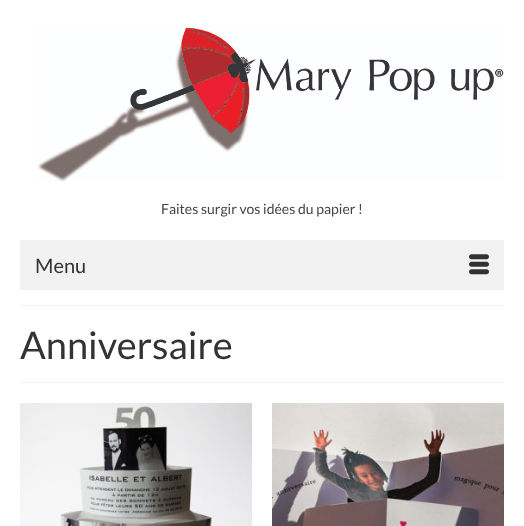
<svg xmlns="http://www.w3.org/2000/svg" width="524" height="526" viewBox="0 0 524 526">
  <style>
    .t1 { font: 14px Lato; fill: #444; }
    .t2 { font: 20px Lato; fill: #333; }
    .t3 { font: 38px Lato; fill: #333; }
  </style>
  <rect width="100%" height="100%" fill="#fff"/>
  <image x="37" y="25" width="467" height="157" href="images/1.png"/>
  <text x="161" y="214" class="t1">Faites surgir vos idées du papier !</text>
  <rect x="20" y="240" width="484" height="50" fill="#f2f2f2"/>
  <text x="35" y="273" class="t2">Menu</text>
  <image x="469" y="254" width="20" height="21" href="images/2.png"/>
  <rect x="20" y="305" width="484" height="1" fill="#f2f2f2"/>
  <rect x="20" y="382" width="484" height="1" fill="#f2f2f2"/>
  <text x="20" y="359" class="t3">Anniversaire</text>
  <image x="20" y="403" width="232" height="123" href="images/3.png"/>
  <image x="272" y="403" width="232" height="123" href="images/4.png"/>
</svg>
